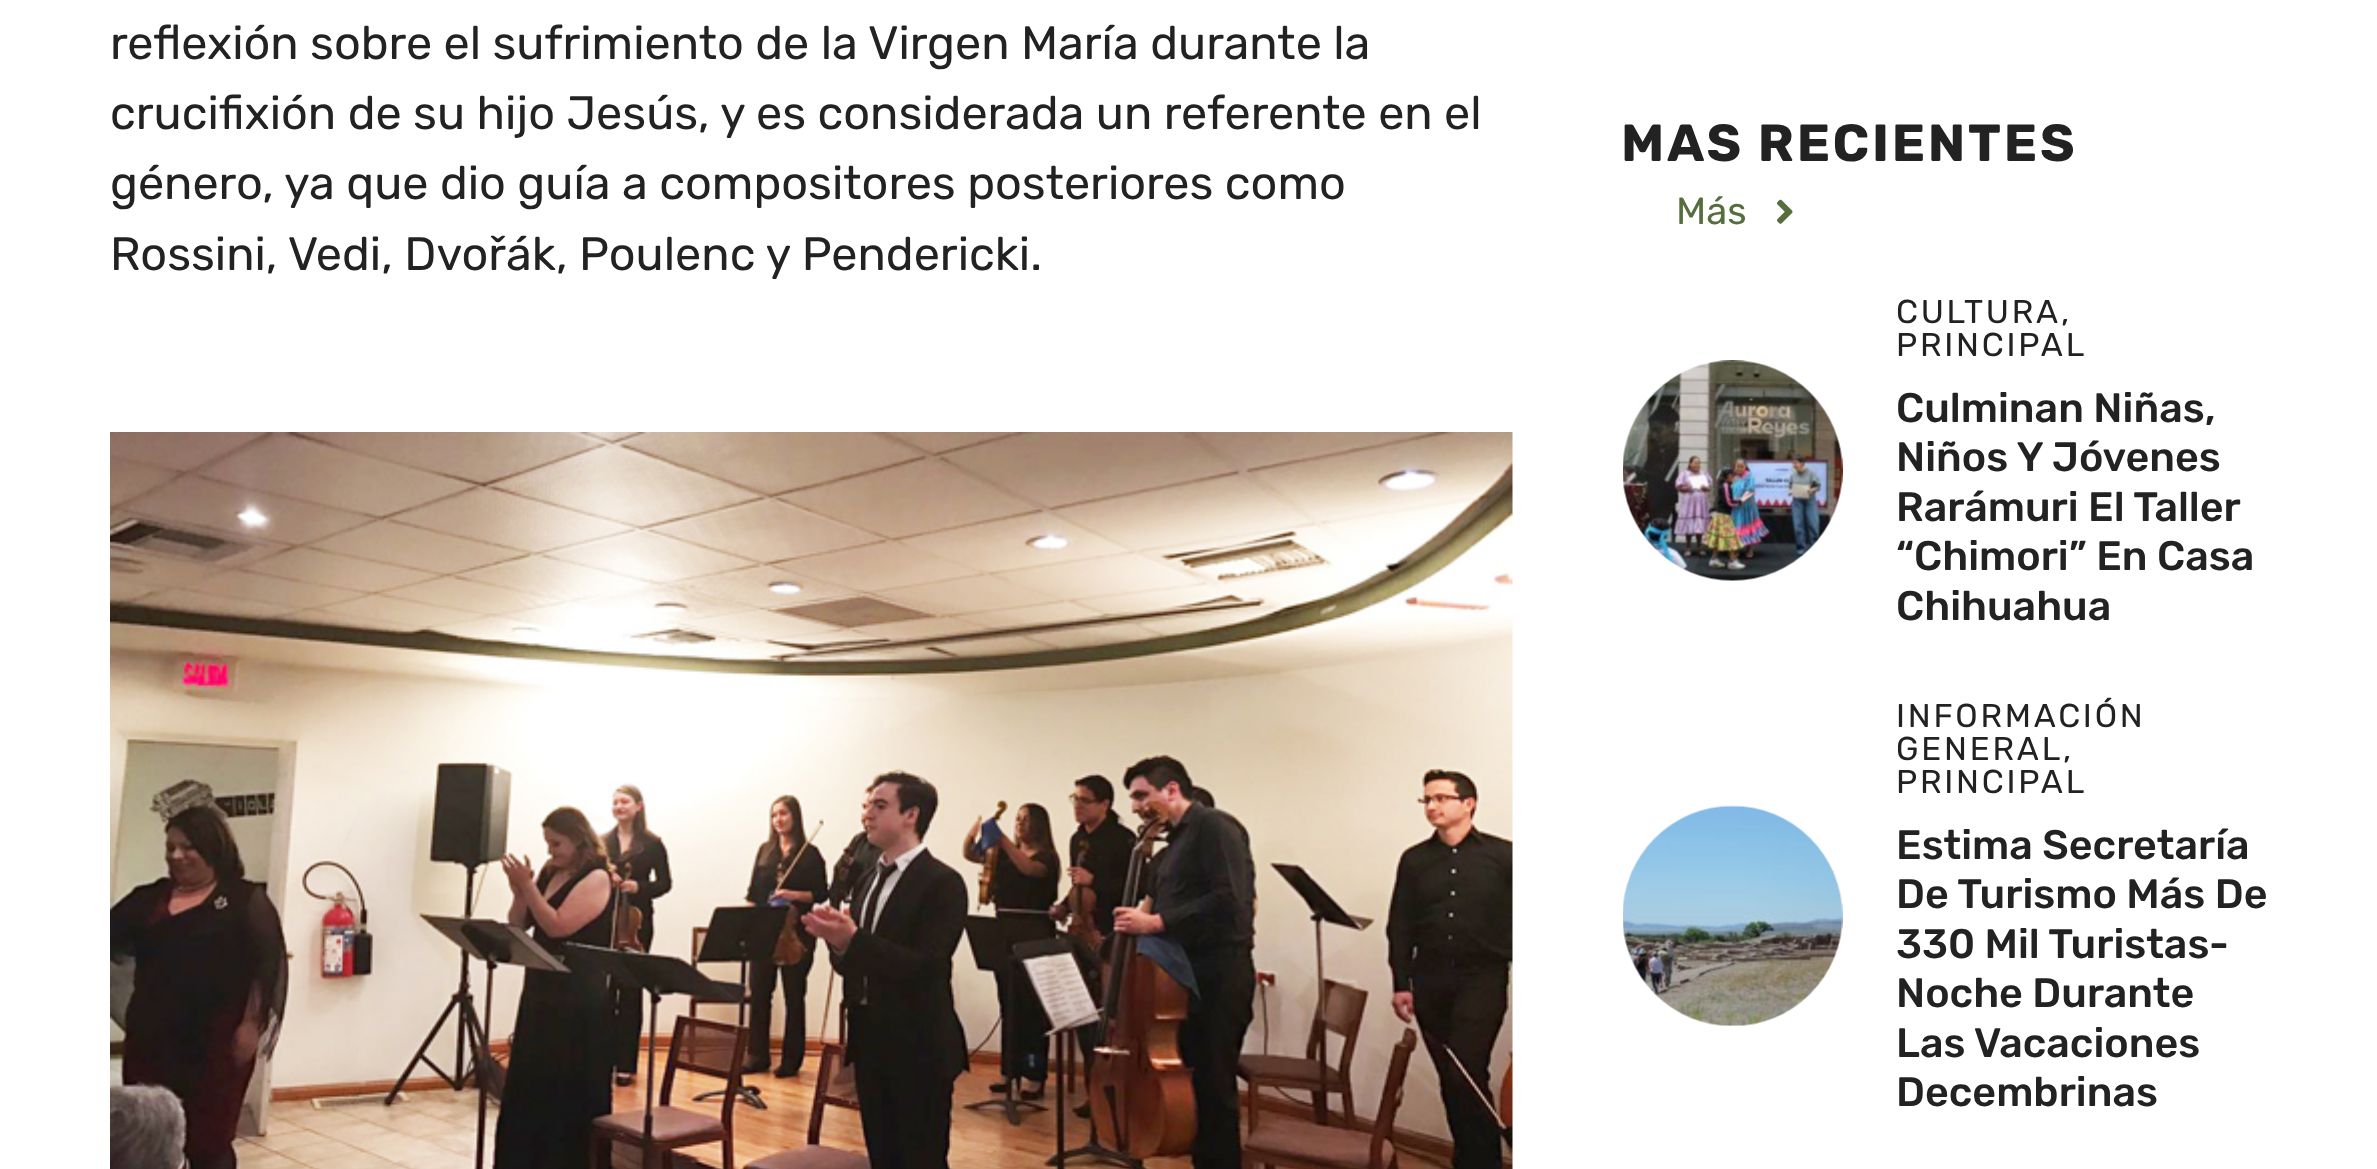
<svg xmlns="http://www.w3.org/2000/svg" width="2377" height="1169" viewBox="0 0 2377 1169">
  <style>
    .t1 { font: 46.75px Rubik; fill: #222; }
    .t2 { font: bold 52.25px Rubik; letter-spacing: 2.75px; fill: #222; }
    .t3 { font: 38px Rubik; fill: #566e3d; }
    .t4 { font: 33px Rubik; letter-spacing: 2.75px; fill: #222; }
    .t5 { font: 500 41.25px Rubik; fill: #222; }
  </style>
  <rect width="100%" height="100%" fill="#fff"/>
  <text x="110" y="59" class="t1">reflexión sobre el sufrimiento de la Virgen María durante la</text>
  <text x="110" y="129" class="t1">crucifixión de su hijo Jesús, y es considerada un referente en el</text>
  <text x="110" y="199" class="t1">género, ya que dio guía a compositores posteriores como</text>
  <text x="110" y="270" class="t1">Rossini, Vedi, Dvořák, Poulenc y Pendericki.</text>
  <image x="110" y="432" width="1403" height="737" href="images/1.png"/>
  <text x="1621" y="161" class="t2">MAS RECIENTES</text>
  <text x="1676" y="224" class="t3">Más</text>
  <image x="1777" y="199" width="16" height="25" href="images/2.png"/>
  <image x="1623" y="360" width="220" height="221" href="images/3.png"/>
  <text x="1896" y="323" class="t4">CULTURA,</text>
  <text x="1896" y="356" class="t4">PRINCIPAL</text>
  <text x="1896" y="422" class="t5">Culminan Niñas,</text>
  <text x="1896" y="471" class="t5">Niños Y Jóvenes</text>
  <text x="1896" y="521" class="t5">Rarámuri El Taller</text>
  <text x="1896" y="570" class="t5">“Chimori” En Casa</text>
  <text x="1896" y="620" class="t5">Chihuahua</text>
  <image x="1623" y="805" width="220" height="221" href="images/4.png"/>
  <text x="1896" y="727" class="t4">INFORMACIÓN</text>
  <text x="1896" y="760" class="t4">GENERAL,</text>
  <text x="1896" y="793" class="t4">PRINCIPAL</text>
  <text x="1896" y="859" class="t5">Estima Secretaría</text>
  <text x="1896" y="908" class="t5">De Turismo Más De</text>
  <text x="1896" y="958" class="t5">330 Mil Turistas-</text>
  <text x="1896" y="1007" class="t5">Noche Durante</text>
  <text x="1896" y="1057" class="t5">Las Vacaciones</text>
  <text x="1896" y="1106" class="t5">Decembrinas</text>
</svg>
